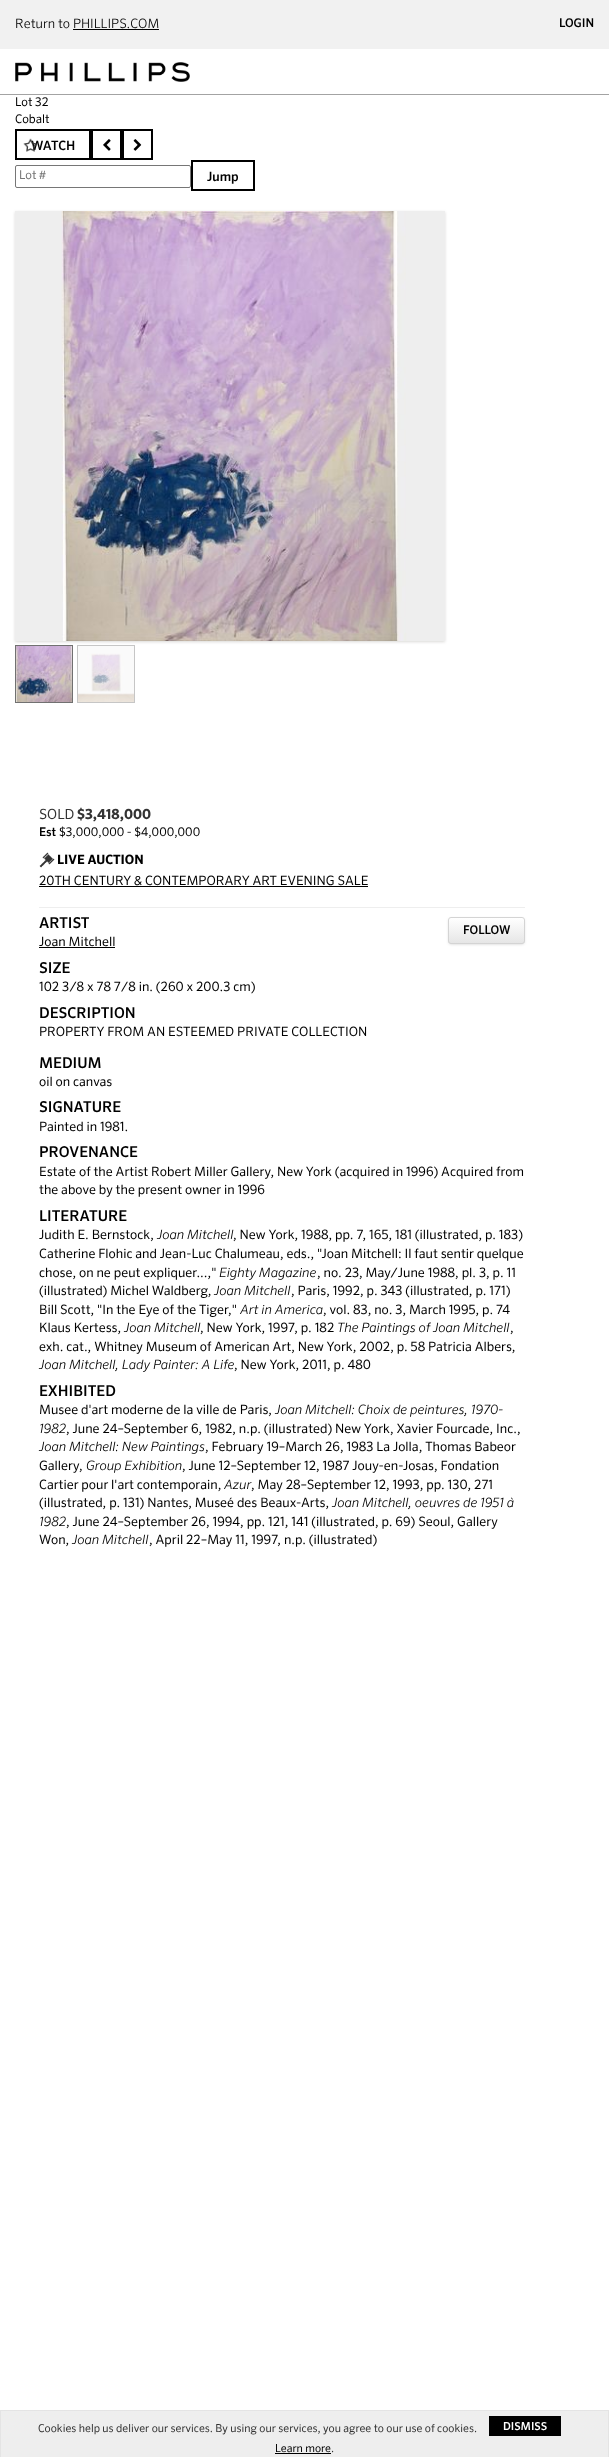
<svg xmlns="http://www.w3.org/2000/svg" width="609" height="2457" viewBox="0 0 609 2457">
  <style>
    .t1 { font: 300 13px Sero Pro; fill: #000; }
    .t2 { font: 500 12px Sero Pro; fill: #000; }
    .t3 { font: 12px Sero Pro; fill: #000; }
    .t4 { font: 500 13px Sero Pro; fill: #000; }
    .t5 { font: 12px Sero Pro; fill: #757575; }
    .t6 { font: 14px Sero Pro; fill: #333; }
    .t7 { font: bold 14px Sero Pro; fill: #333; }
    .t8 { font: bold 13px Sero Pro; fill: #000; }
    .t9 { font: 13px Sero Pro; fill: #000; }
    .t10 { font: 500 15px Sero Pro; fill: #000; }
    .t11 { font: italic 300 13px Sero Pro; fill: #000; }
    .t12 { font: 11px Sero Pro; fill: #333; }
    .t13 { font: 500 11px Sero Pro; fill: #fff; }
    .t14 { font: 11px Sero Pro; fill: #000; }
  </style>
  <defs>
    <clipPath id="clip1"><rect x="448" y="917" width="77" height="27" rx="3"/></clipPath>
    <linearGradient id="g1" gradientUnits="userSpaceOnUse" x1="487" y1="918" x2="487" y2="943"><stop offset="0" stop-color="#fff"/><stop offset="1" stop-color="#e6e6e6"/></linearGradient>
  </defs>
  <rect width="100%" height="100%" fill="#fff"/>
  <rect x="0" y="94" width="609" height="1" fill="#a3a3a3"/>
  <rect x="0" y="0" width="609" height="49" fill="#f1f1f1"/>
  <text x="15" y="28" class="t1">Return to PHILLIPS.COM</text>
  <rect x="73" y="29" width="86" height="1" fill="#000"/>
  <text x="559" y="27" class="t2">LOGIN</text>
  <image x="15" y="62" width="175" height="20" href="images/1.png"/>
  <text x="15" y="106" class="t3">Lot 32</text>
  <text x="15" y="123" class="t3">Cobalt</text>
  <rect x="16" y="130" width="74" height="29" fill="none" stroke="#000" stroke-width="2"/>
  <text x="31" y="150" class="t4">WATCH</text>
  <image x="23" y="138" width="15" height="14" href="images/2.png"/>
  <rect x="92" y="130" width="29" height="29" fill="none" stroke="#000" stroke-width="2"/>
  <image x="103" y="139" width="8" height="12" href="images/3.png"/>
  <rect x="123" y="130" width="29" height="29" fill="none" stroke="#000" stroke-width="2"/>
  <image x="133" y="139" width="9" height="12" href="images/4.png"/>
  <rect x="15.5" y="165.5" width="175" height="22" rx="1.5" fill="none" stroke="#767676"/>
  <text x="19" y="179" class="t5">Lot #</text>
  <rect x="192" y="161" width="62" height="29" fill="none" stroke="#000" stroke-width="2"/>
  <text x="207" y="181" class="t4">Jump</text>
  <rect x="15" y="212" width="430" height="430" fill="#dad9d7" filter="blur(1.5px)"/>
  <image x="15" y="211" width="430" height="430" href="images/5.png"/>
  <rect x="15.5" y="645.5" width="57" height="57" fill="none" stroke="#717171"/>
  <rect x="77.5" y="645.5" width="57" height="57" fill="none" stroke="#c6c6c6"/>
  <image x="16" y="646" width="56" height="56" href="images/6.png"/>
  <image x="78" y="646" width="56" height="56" href="images/7.png"/>
  <text x="39" y="819" class="t6">SOLD</text>
  <text x="77" y="819" class="t7">$3,418,000</text>
  <text x="39" y="836" class="t2">Est</text>
  <text x="59" y="836" class="t3">$3,000,000 - $4,000,000</text>
  <image x="39" y="852" width="16" height="16" href="images/8.png"/>
  <text x="57" y="864" class="t8">LIVE AUCTION</text>
  <text x="39" y="885" class="t9">20TH CENTURY &amp; CONTEMPORARY ART EVENING SALE</text>
  <rect x="39" y="886" width="329" height="1" fill="#000"/>
  <rect x="39" y="907" width="486" height="1" fill="#eee"/>
  <text x="39" y="928" class="t10">ARTIST</text>
  <rect x="449" y="919" width="75" height="25" rx="2" fill="#00000033" filter="blur(1.5px)"/>
  <g clip-path="url(#clip1)">
    <rect x="448" y="918" width="77" height="25" fill="url(#g1)"/>
  </g>
  <rect x="448.5" y="917.5" width="76" height="26" rx="2.5" fill="none" stroke="#d4d4d4"/>
  <text x="463" y="934" class="t2">FOLLOW</text>
  <text x="39" y="946" class="t9">Joan Mitchell</text>
  <rect x="39" y="947" width="76" height="1" fill="#000"/>
  <text x="39" y="973" class="t10">SIZE</text>
  <text x="39" y="991" class="t9">102 3/8 x 78 7/8 in. (260 x 200.3 cm)</text>
  <text x="39" y="1018" class="t10">DESCRIPTION</text>
  <text x="39" y="1036" class="t9">PROPERTY FROM AN ESTEEMED PRIVATE COLLECTION</text>
  <text x="39" y="1068" class="t10">MEDIUM</text>
  <text x="39" y="1086" class="t9">oil on canvas</text>
  <text x="39" y="1112" class="t10">SIGNATURE</text>
  <text x="39" y="1131" class="t9">Painted in 1981.</text>
  <text x="39" y="1157" class="t10">PROVENANCE</text>
  <text x="39" y="1176" class="t9">Estate of the Artist Robert Miller Gallery, New York (acquired in 1996) Acquired from</text>
  <text x="39" y="1194" class="t9">the above by the present owner in 1996</text>
  <text x="39" y="1221" class="t10">LITERATURE</text>
  <text x="39" y="1239" class="t9">Judith E. Bernstock,</text>
  <text x="157" y="1239" class="t11">Joan Mitchell</text>
  <text x="233" y="1239" class="t9">, New York, 1988, pp. 7, 165, 181 (illustrated, p. 183)</text>
  <text x="39" y="1258" class="t9">Catherine Flohic and Jean-Luc Chalumeau, eds., "Joan Mitchell: Il faut sentir quelque</text>
  <text x="39" y="1277" class="t9">chose, on ne peut expliquer...,"</text>
  <text x="219" y="1277" class="t11">Eighty Magazine</text>
  <text x="317" y="1277" class="t9">, no. 23, May/June 1988, pl. 3, p. 11</text>
  <text x="39" y="1295" class="t9">(illustrated) Michel Waldberg,</text>
  <text x="214" y="1295" class="t11">Joan Mitchell</text>
  <text x="291" y="1295" class="t9">, Paris, 1992, p. 343 (illustrated, p. 171)</text>
  <text x="39" y="1314" class="t9">Bill Scott, "In the Eye of the Tiger,"</text>
  <text x="240" y="1314" class="t11">Art in America</text>
  <text x="323" y="1314" class="t9">, vol. 83, no. 3, March 1995, p. 74</text>
  <text x="39" y="1332" class="t9">Klaus Kertess,</text>
  <text x="124" y="1332" class="t11">Joan Mitchell</text>
  <text x="200" y="1332" class="t9">, New York, 1997, p. 182</text>
  <text x="337" y="1332" class="t11">The Paintings of Joan Mitchell</text>
  <text x="510" y="1332" class="t9">,</text>
  <text x="39" y="1351" class="t9">exh. cat., Whitney Museum of American Art, New York, 2002, p. 58 Patricia Albers,</text>
  <text x="39" y="1369" class="t11">Joan Mitchell, Lady Painter: A Life</text>
  <text x="234" y="1369" class="t9">, New York, 2011, p. 480</text>
  <text x="39" y="1396" class="t10">EXHIBITED</text>
  <text x="39" y="1414" class="t9">Musee d'art moderne de la ville de Paris,</text>
  <text x="275" y="1414" class="t11">Joan Mitchell: Choix de peintures, 1970-</text>
  <text x="39" y="1433" class="t11">1982</text>
  <text x="66" y="1433" class="t9">, June 24–September 6, 1982, n.p. (illustrated) New York, Xavier Fourcade, Inc.,</text>
  <text x="39" y="1451" class="t11">Joan Mitchell: New Paintings</text>
  <text x="205" y="1451" class="t9">, February 19–March 26, 1983 La Jolla, Thomas Babeor</text>
  <text x="39" y="1470" class="t9">Gallery,</text>
  <text x="86" y="1470" class="t11">Group Exhibition</text>
  <text x="182" y="1470" class="t9">, June 12–September 12, 1987 Jouy-en-Josas, Fondation</text>
  <text x="39" y="1489" class="t9">Cartier pour l'art contemporain,</text>
  <text x="224" y="1489" class="t11">Azur</text>
  <text x="251" y="1489" class="t9">, May 28–September 12, 1993, pp. 130, 271</text>
  <text x="39" y="1507" class="t9">(illustrated, p. 131) Nantes, Musée des Beaux-Arts,</text>
  <text x="332" y="1507" class="t11">Joan Mitchell, oeuvres de 1951 à</text>
  <text x="39" y="1526" class="t11">1982</text>
  <text x="66" y="1526" class="t9">, June 24–September 26, 1994, pp. 121, 141 (illustrated, p. 69) Seoul, Gallery</text>
  <text x="39" y="1544" class="t9">Won,</text>
  <text x="72" y="1544" class="t11">Joan Mitchell</text>
  <text x="149" y="1544" class="t9">, April 22–May 11, 1997, n.p. (illustrated)</text>
  <rect x="1" y="2411" width="607" height="46" fill="#eee"/>
  <rect x="0" y="2410" width="609" height="1" fill="#e4e4e4"/>
  <rect x="608" y="2410" width="1" height="47" fill="#e4e4e4"/>
  <rect x="0" y="2410" width="1" height="47" fill="#e4e4e4"/>
  <text x="38" y="2432" class="t12">Cookies help us deliver our services. By using our services, you agree to our use of cookies.</text>
  <rect x="489" y="2416" width="72" height="20" fill="#000"/>
  <text x="503" y="2430" class="t13">DISMISS</text>
  <text x="275" y="2452" class="t14">Learn more</text>
  <rect x="275" y="2453" width="56" height="1" fill="#000"/>
  <text x="331" y="2452" class="t12">.</text>
</svg>
